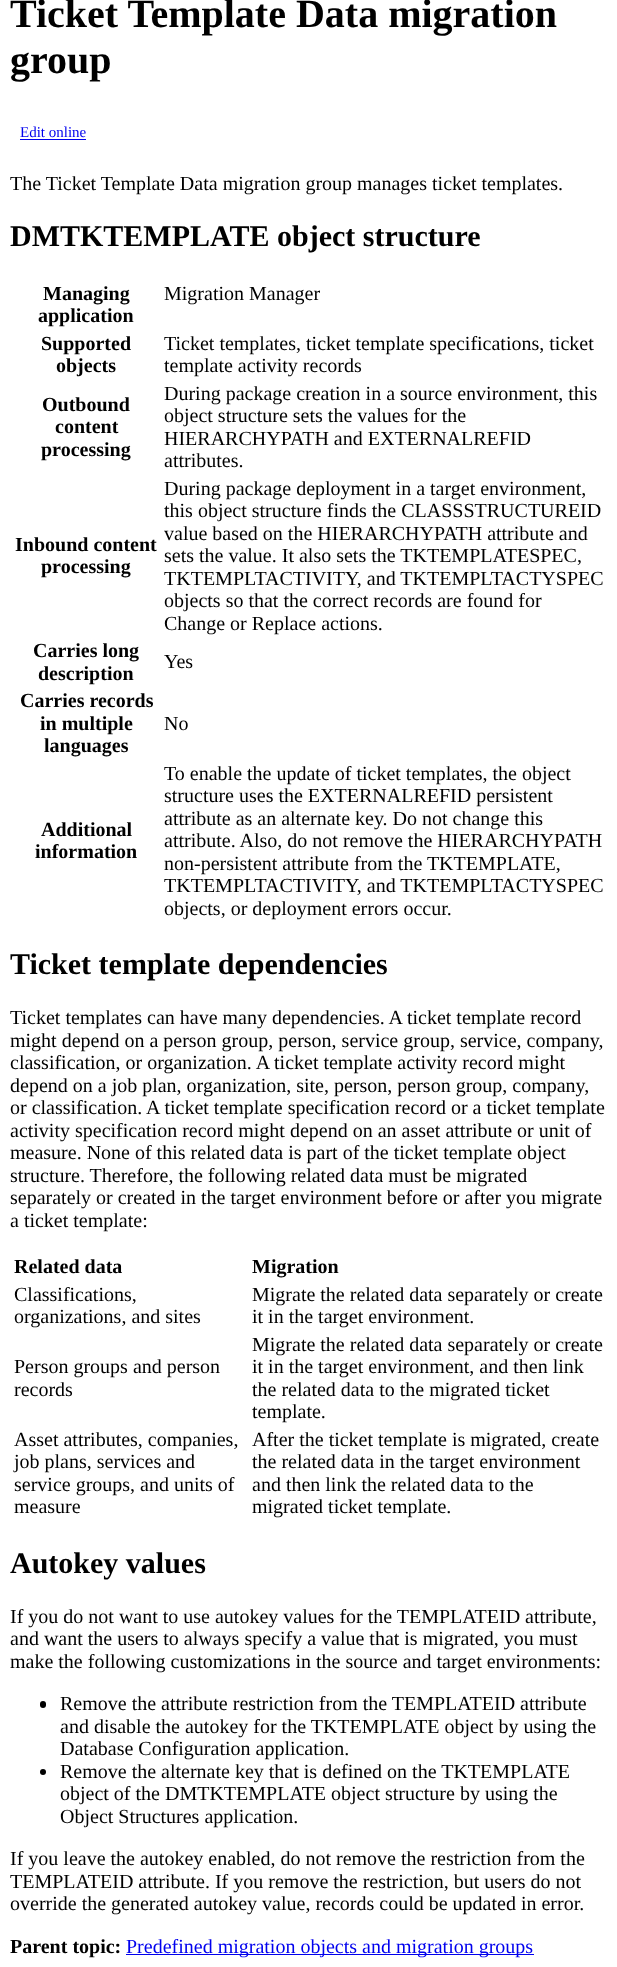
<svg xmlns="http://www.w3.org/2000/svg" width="617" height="1967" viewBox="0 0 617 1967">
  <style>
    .t1 { font: bold 40px Liberation Serif; fill: #000; }
    .t2 { font: 15px Liberation Serif; fill: #00e; }
    .t3 { font: 20px Liberation Serif; fill: #000; }
    .t4 { font: bold 30px Liberation Serif; fill: #000; }
    .t5 { font: bold 20px Liberation Serif; fill: #000; }
    .t6 { font: 20px Liberation Serif; fill: #00e; }
  </style>
  <rect width="100%" height="100%" fill="#fff"/>
  <text x="10" y="27" class="t1">Ticket Template Data migration</text>
  <text x="10" y="73" class="t1">group</text>
  <text x="20" y="137" class="t2">Edit online</text>
  <rect x="20" y="139" width="66" height="1" fill="#00e"/>
  <text x="10" y="190" class="t3">The Ticket Template Data migration group manages ticket templates.</text>
  <text x="10" y="246" class="t4">DMTKTEMPLATE object structure</text>
  <text x="43" y="300" class="t5">Managing</text>
  <text x="38" y="322" class="t5">application</text>
  <text x="164" y="300" class="t3">Migration Manager</text>
  <text x="41" y="350" class="t5">Supported</text>
  <text x="56" y="372" class="t5">objects</text>
  <text x="164" y="350" class="t3">Ticket templates, ticket template specifications, ticket</text>
  <text x="164" y="372" class="t3">template activity records</text>
  <text x="42" y="411" class="t5">Outbound</text>
  <text x="55" y="433" class="t5">content</text>
  <text x="41" y="456" class="t5">processing</text>
  <text x="164" y="400" class="t3">During package creation in a source environment, this</text>
  <text x="164" y="422" class="t3">object structure sets the values for the</text>
  <text x="164" y="445" class="t3">HIERARCHYPATH and EXTERNALREFID</text>
  <text x="164" y="467" class="t3">attributes.</text>
  <text x="15" y="551" class="t5">Inbound content</text>
  <text x="41" y="573" class="t5">processing</text>
  <text x="164" y="495" class="t3">During package deployment in a target environment,</text>
  <text x="164" y="517" class="t3">this object structure finds the CLASSSTRUCTUREID</text>
  <text x="164" y="540" class="t3">value based on the HIERARCHYPATH attribute and</text>
  <text x="164" y="562" class="t3">sets the value. It also sets the TKTEMPLATESPEC,</text>
  <text x="164" y="585" class="t3">TKTEMPLTACTIVITY, and TKTEMPLTACTYSPEC</text>
  <text x="164" y="607" class="t3">objects so that the correct records are found for</text>
  <text x="164" y="630" class="t3">Change or Replace actions.</text>
  <text x="33" y="657" class="t5">Carries long</text>
  <text x="38" y="680" class="t5">description</text>
  <text x="164" y="668" class="t3">Yes</text>
  <text x="20" y="707" class="t5">Carries records</text>
  <text x="40" y="730" class="t5">in multiple</text>
  <text x="44" y="752" class="t5">languages</text>
  <text x="164" y="730" class="t3">No</text>
  <text x="41" y="836" class="t5">Additional</text>
  <text x="35" y="858" class="t5">information</text>
  <text x="164" y="780" class="t3">To enable the update of ticket templates, the object</text>
  <text x="164" y="802" class="t3">structure uses the EXTERNALREFID persistent</text>
  <text x="164" y="825" class="t3">attribute as an alternate key. Do not change this</text>
  <text x="164" y="847" class="t3">attribute. Also, do not remove the HIERARCHYPATH</text>
  <text x="164" y="870" class="t3">non-persistent attribute from the TKTEMPLATE,</text>
  <text x="164" y="892" class="t3">TKTEMPLTACTIVITY, and TKTEMPLTACTYSPEC</text>
  <text x="164" y="915" class="t3">objects, or deployment errors occur.</text>
  <text x="10" y="974" class="t4">Ticket template dependencies</text>
  <text x="10" y="1024" class="t3">Ticket templates can have many dependencies. A ticket template record</text>
  <text x="10" y="1047" class="t3">might depend on a person group, person, service group, service, company,</text>
  <text x="10" y="1069" class="t3">classification, or organization. A ticket template activity record might</text>
  <text x="10" y="1092" class="t3">depend on a job plan, organization, site, person, person group, company,</text>
  <text x="10" y="1114" class="t3">or classification. A ticket template specification record or a ticket template</text>
  <text x="10" y="1137" class="t3">activity specification record might depend on an asset attribute or unit of</text>
  <text x="10" y="1159" class="t3">measure. None of this related data is part of the ticket template object</text>
  <text x="10" y="1182" class="t3">structure. Therefore, the following related data must be migrated</text>
  <text x="10" y="1204" class="t3">separately or created in the target environment before or after you migrate</text>
  <text x="10" y="1227" class="t3">a ticket template:</text>
  <text x="14" y="1273" class="t5">Related data</text>
  <text x="252" y="1273" class="t5">Migration</text>
  <text x="14" y="1301" class="t3">Classifications,</text>
  <text x="14" y="1323" class="t3">organizations, and sites</text>
  <text x="252" y="1301" class="t3">Migrate the related data separately or create</text>
  <text x="252" y="1323" class="t3">it in the target environment.</text>
  <text x="14" y="1373" class="t3">Person groups and person</text>
  <text x="14" y="1396" class="t3">records</text>
  <text x="252" y="1351" class="t3">Migrate the related data separately or create</text>
  <text x="252" y="1373" class="t3">it in the target environment, and then link</text>
  <text x="252" y="1396" class="t3">the related data to the migrated ticket</text>
  <text x="252" y="1418" class="t3">template.</text>
  <text x="14" y="1446" class="t3">Asset attributes, companies,</text>
  <text x="14" y="1468" class="t3">job plans, services and</text>
  <text x="14" y="1491" class="t3">service groups, and units of</text>
  <text x="14" y="1513" class="t3">measure</text>
  <text x="252" y="1446" class="t3">After the ticket template is migrated, create</text>
  <text x="252" y="1468" class="t3">the related data in the target environment</text>
  <text x="252" y="1491" class="t3">and then link the related data to the</text>
  <text x="252" y="1513" class="t3">migrated ticket template.</text>
  <text x="10" y="1573" class="t4">Autokey values</text>
  <text x="10" y="1623" class="t3">If you do not want to use autokey values for the TEMPLATEID attribute,</text>
  <text x="10" y="1645" class="t3">and want the users to always specify a value that is migrated, you must</text>
  <text x="10" y="1668" class="t3">make the following customizations in the source and target environments:</text>
  <rect x="40" y="1701" width="6" height="7" rx="3" fill="#000"/>
  <text x="60" y="1710" class="t3">Remove the attribute restriction from the TEMPLATEID attribute</text>
  <text x="60" y="1733" class="t3">and disable the autokey for the TKTEMPLATE object by using the</text>
  <text x="60" y="1755" class="t3">Database Configuration application.</text>
  <circle cx="43" cy="1772" r="3" fill="#000"/>
  <text x="60" y="1778" class="t3">Remove the alternate key that is defined on the TKTEMPLATE</text>
  <text x="60" y="1800" class="t3">object of the DMTKTEMPLATE object structure by using the</text>
  <text x="60" y="1823" class="t3">Object Structures application.</text>
  <text x="10" y="1865" class="t3">If you leave the autokey enabled, do not remove the restriction from the</text>
  <text x="10" y="1888" class="t3">TEMPLATEID attribute. If you remove the restriction, but users do not</text>
  <text x="10" y="1910" class="t3">override the generated autokey value, records could be updated in error.</text>
  <text x="10" y="1953" class="t5">Parent topic:</text>
  <rect x="126" y="1954" width="408" height="1" fill="#00e"/>
  <text x="126" y="1953" class="t6">Predefined migration objects and migration groups</text>
</svg>
